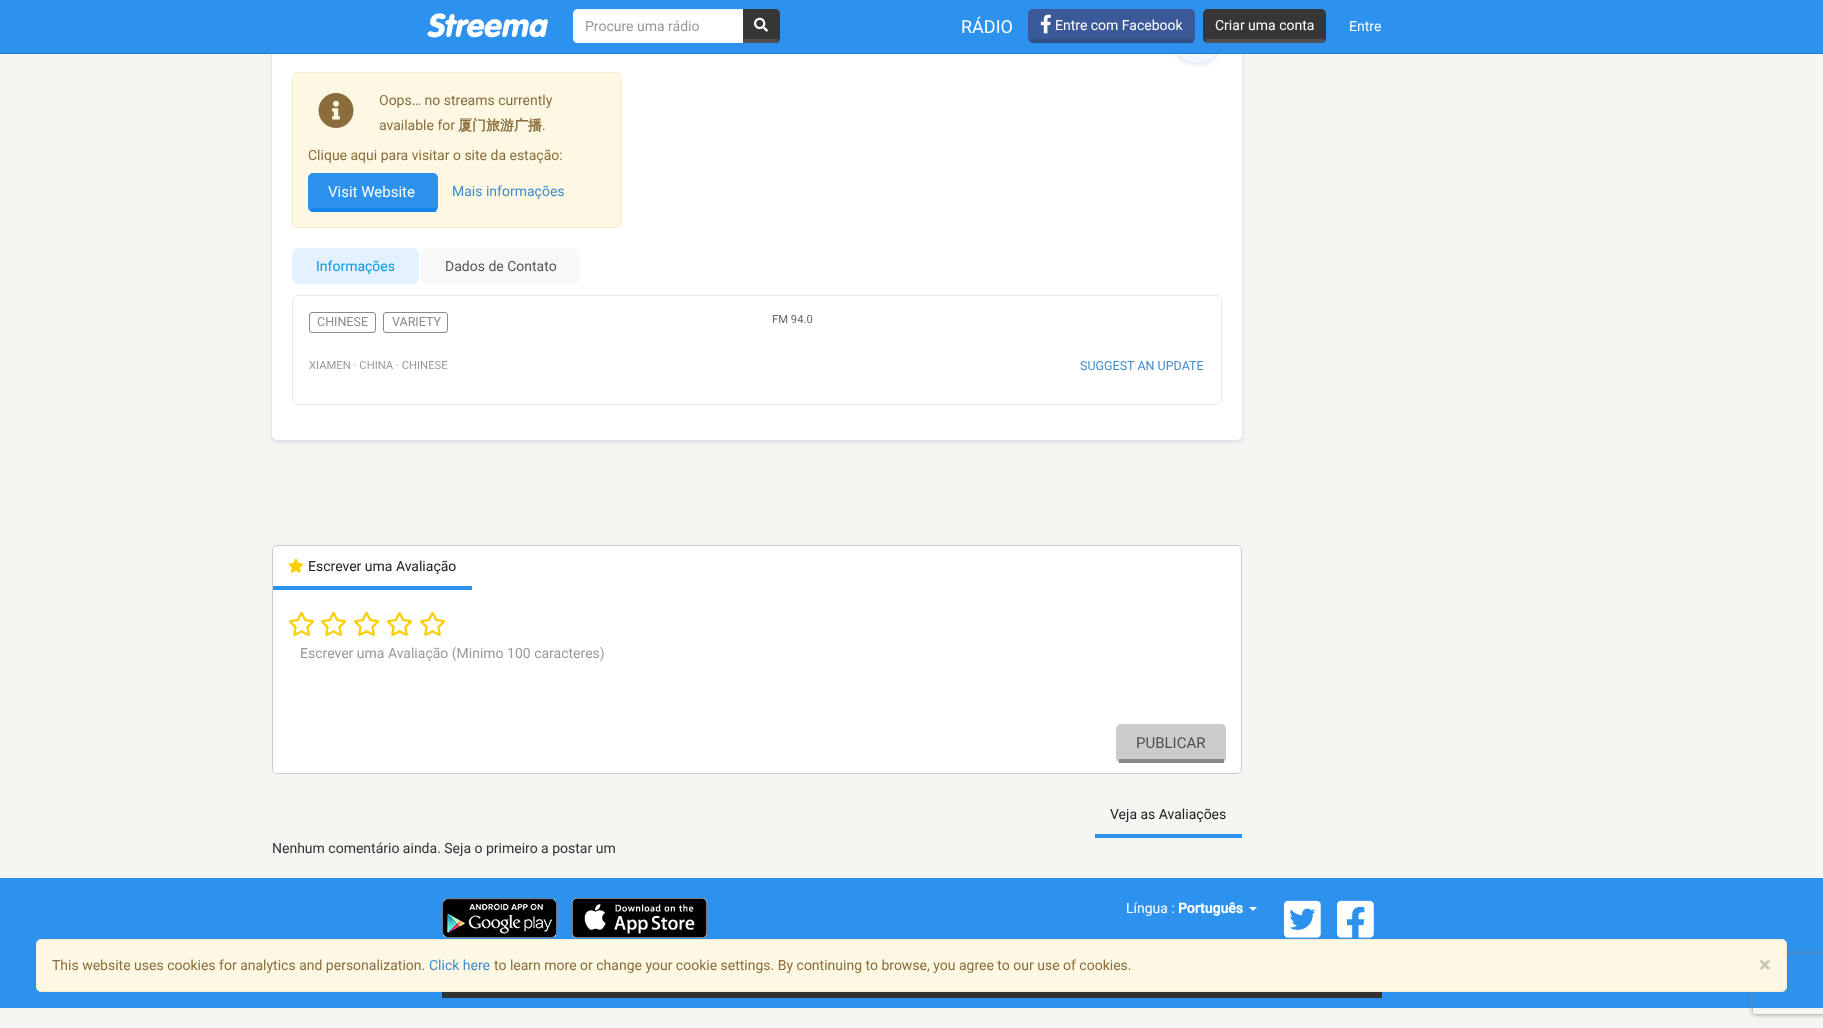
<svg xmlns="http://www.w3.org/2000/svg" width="1823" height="1028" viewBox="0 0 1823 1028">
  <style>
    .t1 { font: 14px Roboto; fill: #999; }
    .t2 { font: 18px Roboto; fill: #fefefe; }
    .t3 { font: 14px Roboto; fill: #fefefe; }
    .t4 { font: 14px Roboto; fill: #8a6d3b; }
    .t5 { font: bold 14px WenQuanYi Zen Hei; fill: #8a6d3b; }
    .t6 { font: 15px Roboto; fill: #fefefe; }
    .t7 { font: 14px Roboto; fill: #428bca; }
    .t8 { font: 14px Roboto; fill: #009be5; }
    .t9 { font: 14px Roboto; fill: #555; }
    .t10 { font: 12.5px Roboto; fill: #8b8b8b; }
    .t11 { font: 11.25px Roboto; fill: #666; }
    .t12 { font: 11.25px Roboto; fill: #999; }
    .t13 { font: 12.5px Roboto; fill: #428bca; }
    .t14 { font: 14px Roboto; fill: #222; }
    .t15 { font: 15px Roboto; fill: #4f4f4f; }
    .t16 { font: 14px Roboto; fill: #333; }
    .t17 { font: bold 14px Roboto; fill: #fefefe; }
    .t18 { font: bold 21px Roboto; fill: #cac6b6; }
  </style>
  <defs>
    <clipPath id="clip1"><path d="M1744 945H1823V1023H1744ZM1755 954H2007C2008 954 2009 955 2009 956V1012C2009 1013 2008 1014 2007 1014H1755C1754 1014 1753 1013 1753 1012V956C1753 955 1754 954 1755 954Z" clip-rule="evenodd"/></clipPath>
  </defs>
  <rect width="100%" height="100%" fill="#f5f5f1"/>
  <rect x="272" y="-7" width="970" height="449" rx="5" fill="#7f8bc940" filter="blur(2px)"/>
  <rect x="272" y="-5" width="970" height="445" rx="5" fill="#fff"/>
  <rect x="1172" y="13" width="50" height="52" rx="25" fill="#7f8bc940" filter="blur(2px)"/>
  <rect x="1172" y="11" width="50" height="52" rx="25" fill="#f3f8ff"/>
  <rect x="0" y="0" width="1823" height="53" fill="#2d91ee"/>
  <rect x="0" y="53" width="1823" height="1" fill="#277dcd"/>
  <image x="427" y="13" width="121" height="25" href="images/1.png"/>
  <path d="M742 9H775C778 9 780 11 780 14V38C780 41 778 43 775 43H742Z" fill="#363636"/>
  <rect x="742" y="39" width="36" height="4" fill="#505050"/>
  <path d="M578 9H743V43H578C575 43 573 41 573 38V14C573 11 575 9 578 9Z" fill="#fff"/>
  <path d="M578 10H743V9H578C575 9 573 11 573 14V15C573 12 575 10 578 10Z" fill="#00000012"/>
  <text x="585" y="31" class="t1">Procure uma rádio</text>
  <image x="754" y="17" width="14" height="15" href="images/2.png"/>
  <text x="961" y="33" class="t2">RÁDIO</text>
  <rect x="1028" y="9" width="167" height="34" rx="5" fill="#3b5998"/>
  <rect x="1031" y="39" width="162" height="4" fill="#344e86"/>
  <image x="1040" y="14" width="11" height="20" href="images/3.png"/>
  <text x="1055" y="30" class="t3">Entre com Facebook</text>
  <rect x="1203" y="9" width="123" height="34" rx="5" fill="#363636"/>
  <rect x="1206" y="39" width="118" height="4" fill="#505050"/>
  <text x="1215" y="30" class="t3">Criar uma conta</text>
  <text x="1349" y="31" class="t3">Entre</text>
  <rect x="292.5" y="72.5" width="329" height="155" rx="4.5" fill="#fcf8e3" stroke="#faebcc"/>
  <image x="318" y="93" width="36" height="35" href="images/4.png"/>
  <text x="379" y="105" class="t4">Oops… no streams currently</text>
  <text x="379" y="130" class="t4">available for</text>
  <text x="458" y="130" class="t5">厦门旅游广播</text>
  <text x="542" y="130" class="t4">.</text>
  <text x="308" y="160" class="t4">Clique aqui para visitar o site da estação:</text>
  <rect x="308" y="173" width="130" height="39" rx="5" fill="#2d91ee"/>
  <rect x="311" y="208" width="125" height="4" fill="#1585ec"/>
  <text x="328" y="197" class="t6">Visit Website</text>
  <text x="452" y="196" class="t7">Mais informações</text>
  <rect x="292" y="248" width="127" height="36" rx="6" fill="#e4f1ff"/>
  <text x="316" y="271" class="t8">Informações</text>
  <rect x="421" y="248" width="159" height="36" rx="6" fill="#f8f8f8"/>
  <text x="445" y="271" class="t9">Dados de Contato</text>
  <rect x="292.5" y="295.5" width="929" height="109" rx="5.5" fill="none" stroke="#eaeaea"/>
  <rect x="309.5" y="312.5" width="66" height="20" rx="2.5" fill="none" stroke="#8b8b8b"/>
  <text x="317" y="326" class="t10">CHINESE</text>
  <rect x="383.5" y="312.5" width="64" height="20" rx="2.5" fill="none" stroke="#8b8b8b"/>
  <text x="392" y="326" class="t10">VARIETY</text>
  <text x="772" y="323" class="t11">FM 94.0</text>
  <text x="309" y="369" class="t12">XIAMEN · CHINA · CHINESE</text>
  <text x="1080" y="370" class="t13">SUGGEST AN UPDATE</text>
  <rect x="272.5" y="545.5" width="969" height="228" rx="4.5" fill="#fff" stroke="#ccc"/>
  <rect x="273" y="586" width="199" height="4" fill="#2d91ee"/>
  <image x="288" y="558" width="16" height="15" href="images/5.png"/>
  <text x="308" y="571" class="t14">Escrever uma Avaliação</text>
  <image x="289" y="612" width="25" height="24" href="images/6.png"/>
  <image x="321" y="612" width="25" height="24" href="images/6.png"/>
  <image x="354" y="612" width="25" height="24" href="images/6.png"/>
  <image x="387" y="612" width="25" height="24" href="images/6.png"/>
  <image x="420" y="612" width="25" height="24" href="images/6.png"/>
  <text x="300" y="658" class="t1">Escrever uma Avaliação (Minimo 100 caracteres)</text>
  <rect x="1116" y="724" width="110" height="39" rx="5" fill="#ccc"/>
  <rect x="1119" y="759" width="105" height="4" fill="#898989"/>
  <text x="1136" y="748" class="t15">PUBLICAR</text>
  <rect x="0" y="878" width="1823" height="130" fill="#2d91ee"/>
  <g clip-path="url(#clip1)">
    <rect x="1753" y="954" width="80" height="60" rx="2" fill="#808080" filter="blur(2.5px)"/>
  </g>
  <rect x="1095" y="834" width="147" height="4" fill="#2d91ee"/>
  <text x="1110" y="819" class="t14">Veja as Avaliações</text>
  <text x="272" y="853" class="t16">Nenhum comentário ainda. Seja o primeiro a postar um</text>
  <image x="442" y="898" width="115" height="40" href="images/7.png"/>
  <image x="572" y="898" width="135" height="40" href="images/8.png"/>
  <text x="1126" y="913" class="t3">Língua :</text>
  <text x="1178" y="913" class="t17">Português</text>
  <path d="M1249 907H1257L1253 911Z" fill="#fff"/>
  <image x="1284" y="900" width="37" height="38" href="images/9.png"/>
  <image x="1337" y="900" width="37" height="38" href="images/10.png"/>
  <rect x="442" y="992" width="940" height="6" fill="#333"/>
  <rect x="36.5" y="939.5" width="1750" height="52" rx="4.5" fill="#fcf8e3" stroke="#faebcc"/>
  <text x="52" y="970" class="t4">This website uses cookies for analytics and personalization.</text>
  <text x="429" y="970" class="t7">Click here</text>
  <text x="494" y="970" class="t4">to learn more or change your cookie settings. By continuing to browse, you agree to our use of cookies.</text>
  <text x="1759" y="972" class="t18">×</text>
</svg>
